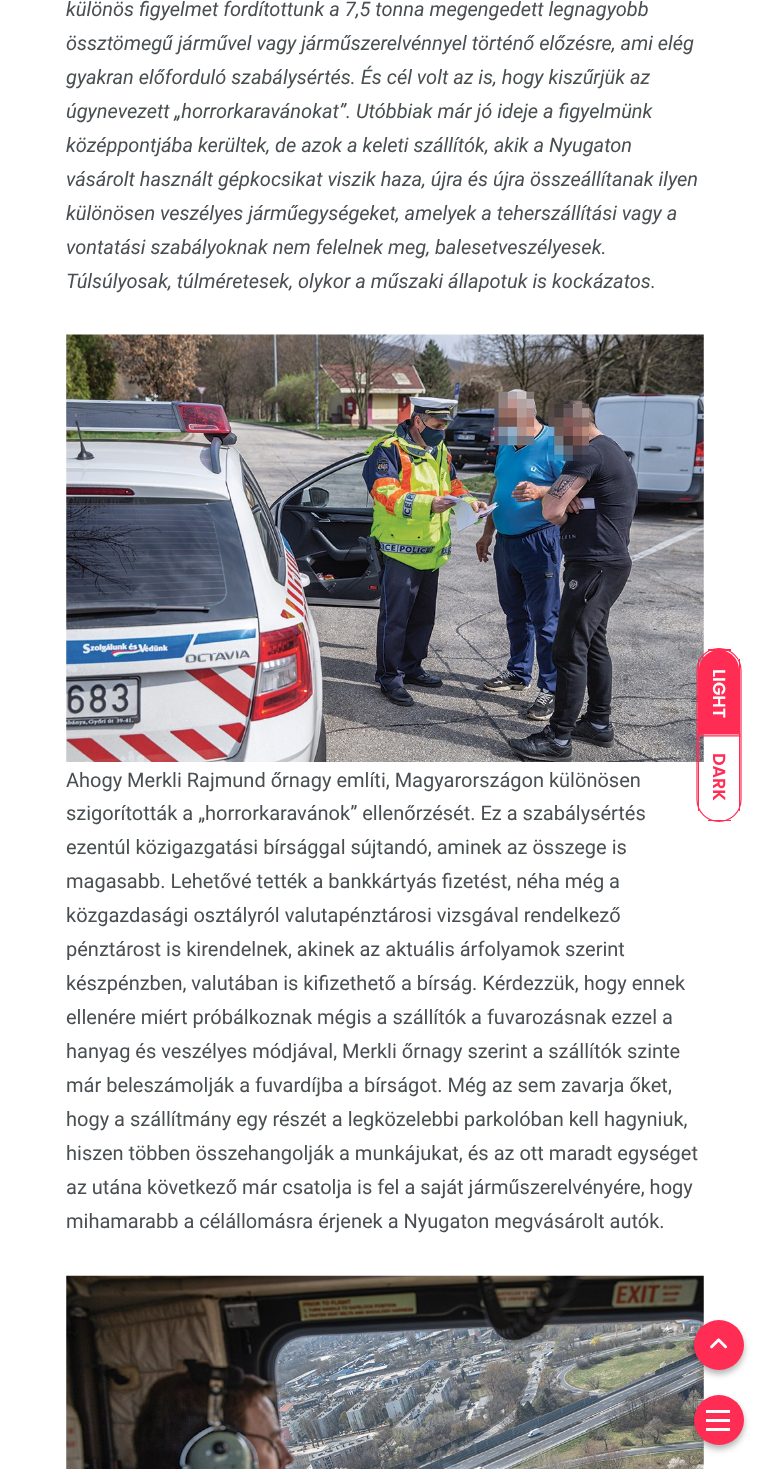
<svg xmlns="http://www.w3.org/2000/svg" width="768" height="1469" viewBox="0 0 768 1469">
  <style>
    .t1 { font: italic 20px Roboto; fill: #494e51; }
    .t2 { font: 20px Roboto; fill: #494e51; }
    .t3 { font: 600 17.5px Poppins; fill: #fff; }
    .t4 { font: 600 17.5px Poppins; fill: #ff2c54; }
  </style>
  <rect width="100%" height="100%" fill="#fff"/>
  <text x="66" y="16" class="t1">különös figyelmet fordítottunk a 7,5 tonna megengedett legnagyobb</text>
  <text x="66" y="50" class="t1">össztömegű járművel vagy járműszerelvénnyel történő előzésre, ami elég</text>
  <text x="66" y="84" class="t1">gyakran előforduló szabálysértés. És cél volt az is, hogy kiszűrjük az</text>
  <text x="66" y="118" class="t1">úgynevezett „horrorkaravánokat”. Utóbbiak már jó ideje a figyelmünk</text>
  <text x="66" y="152" class="t1">középpontjába kerültek, de azok a keleti szállítók, akik a Nyugaton</text>
  <text x="66" y="186" class="t1">vásárolt használt gépkocsikat viszik haza, újra és újra összeállítanak ilyen</text>
  <text x="66" y="220" class="t1">különösen veszélyes járműegységeket, amelyek a teherszállítási vagy a</text>
  <text x="66" y="254" class="t1">vontatási szabályoknak nem felelnek meg, balesetveszélyesek.</text>
  <text x="66" y="288" class="t1">Túlsúlyosak, túlméretesek, olykor a műszaki állapotuk is kockázatos.</text>
  <image x="66" y="334" width="638" height="428" href="images/1.png"/>
  <text x="66" y="787" class="t2">Ahogy Merkli Rajmund őrnagy említi, Magyarországon különösen</text>
  <text x="66" y="820" class="t2">szigorították a „horrorkaravánok” ellenőrzését. Ez a szabálysértés</text>
  <text x="66" y="854" class="t2">ezentúl közigazgatási bírsággal sújtandó, aminek az összege is</text>
  <text x="66" y="888" class="t2">magasabb. Lehetővé tették a bankkártyás fizetést, néha még a</text>
  <text x="66" y="922" class="t2">közgazdasági osztályról valutapénztárosi vizsgával rendelkező</text>
  <text x="66" y="956" class="t2">pénztárost is kirendelnek, akinek az aktuális árfolyamok szerint</text>
  <text x="66" y="990" class="t2">készpénzben, valutában is kifizethető a bírság. Kérdezzük, hogy ennek</text>
  <text x="66" y="1024" class="t2">ellenére miért próbálkoznak mégis a szállítók a fuvarozásnak ezzel a</text>
  <text x="66" y="1058" class="t2">hanyag és veszélyes módjával, Merkli őrnagy szerint a szállítók szinte</text>
  <text x="66" y="1092" class="t2">már beleszámolják a fuvardíjba a bírságot. Még az sem zavarja őket,</text>
  <text x="66" y="1126" class="t2">hogy a szállítmány egy részét a legközelebbi parkolóban kell hagyniuk,</text>
  <text x="66" y="1160" class="t2">hiszen többen összehangolják a munkájukat, és az ott maradt egységet</text>
  <text x="66" y="1194" class="t2">az utána következő már csatolja is fel a saját járműszerelvényére, hogy</text>
  <text x="66" y="1228" class="t2">mihamarabb a célállomásra érjenek a Nyugaton megvásárolt autók.</text>
  <image x="66" y="1275" width="638" height="194" href="images/2.png"/>
  <rect x="694" y="1399" width="50" height="50" rx="25" fill="#0000004d" filter="blur(3px)"/>
  <circle cx="719" cy="1420" r="25" fill="#ff2c54"/>
  <rect x="706" y="1410" width="24" height="3" fill="#fff"/>
  <rect x="706" y="1419" width="24" height="3" fill="#fff"/>
  <rect x="706" y="1428" width="24" height="3" fill="#fff"/>
  <path d="M739 670V734H699V670C699 659 708 650 719 650C730 650 739 659 739 670Z" fill="#ff2c54"/>
  <path d="M741 670.5V735H697V670.5C697 658 707 648.5 719 648.5C731 648.5 741 658 741 670.5Z" fill="none" stroke="#ff2c54" stroke-width="1.2"/>
  <rect x="739" y="659" width="1" height="77" fill="#ff2c54"/>
  <rect x="698" y="659" width="1" height="77" fill="#ff2c54"/>
  <rect x="708" y="649" width="23" height="2" fill="#ff2c54"/>
  <text x="713" y="669" transform="rotate(90 713 669)" class="t3">LIGHT</text>
  <path d="M741 736V799.5C741 812 731 821.5 719 821.5C707 821.5 697 812 697 799.5V736Z" fill="none" stroke="#ff2c54" stroke-width="1.2"/>
  <rect x="739" y="736" width="1" height="75" fill="#ff2c54"/>
  <rect x="708" y="820" width="23" height="1" fill="#ff2c54"/>
  <rect x="698" y="736" width="1" height="75" fill="#ff2c54"/>
  <text x="713" y="753" transform="rotate(90 713 753)" class="t4">DARK</text>
  <rect x="694" y="1324" width="50" height="50" rx="25" fill="#0000004d" filter="blur(3px)"/>
  <circle cx="719" cy="1345" r="25" fill="#ff2c54"/>
  <image x="710" y="1338" width="17" height="11" href="images/3.png"/>
</svg>
